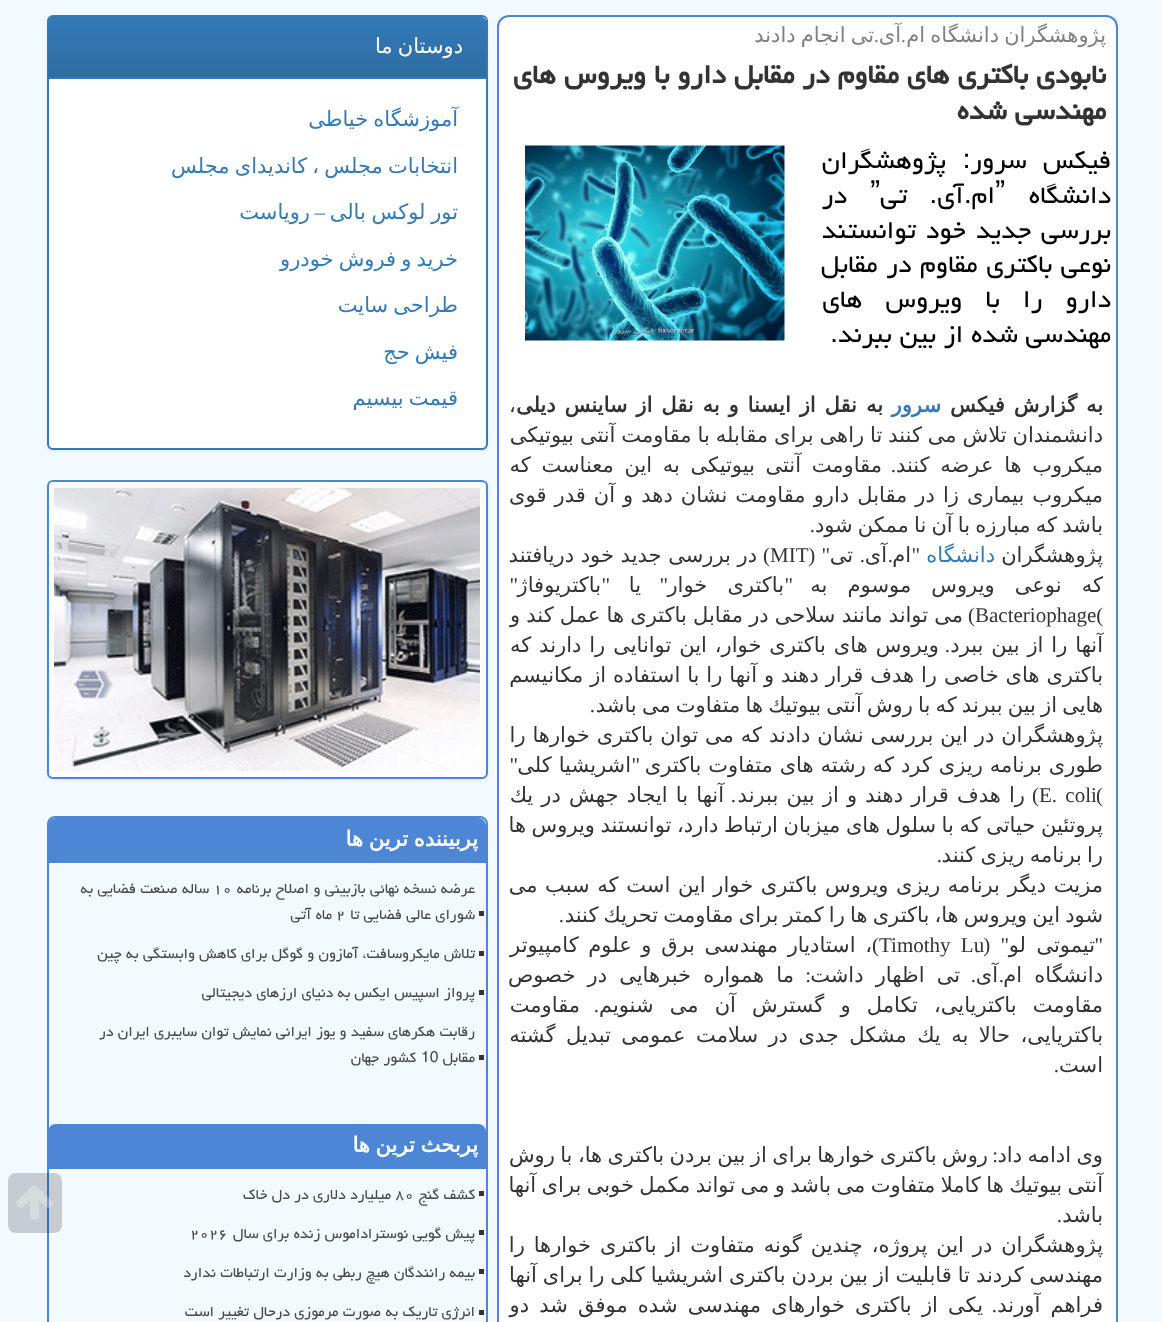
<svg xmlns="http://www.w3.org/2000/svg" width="1162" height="1322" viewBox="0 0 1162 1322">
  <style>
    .t1 { font: 21px DejaVu Sans; direction: rtl; fill: #808080; }
    .t2 { font: 21px Liberation Serif; direction: rtl; fill: #808080; }
    .t3 { font: bold 33.6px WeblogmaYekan; direction: rtl; fill: #333; }
    .t4 { font: 31.5px WeblogmaYekan; direction: rtl; fill: #000; }
    .t5 { font: 31.5px Liberation Sans; fill: #000; }
    .t6 { font: bold 21px DejaVu Sans; direction: rtl; fill: #333; }
    .t7 { font: bold 21px DejaVu Sans; direction: rtl; fill: #337ab7; }
    .t8 { font: 21px DejaVu Sans; fill: #333; }
    .t9 { font: 21px DejaVu Sans; direction: rtl; fill: #333; }
    .t10 { font: 21px Liberation Serif; direction: rtl; fill: #333; }
    .t11 { font: 21px DejaVu Sans; direction: rtl; fill: #337ab7; }
    .t12 { font: 21px Liberation Serif; fill: #333; }
    .t13 { font: 21px DejaVu Sans; direction: rtl; fill: #fff; }
    .t14 { font: 21px Liberation Serif; direction: rtl; fill: #337ab7; }
    .t15 { font: bold 21px DejaVu Sans; direction: rtl; fill: #fff; }
    .t16 { font: 18px WeblogmaYekan; direction: rtl; fill: #4a4a4a; }
    .t17 { font: 18px WeblogmaYekan; fill: #4a4a4a; }
  </style>
  <defs>
    <linearGradient id="g1" gradientUnits="userSpaceOnUse" x1="267" y1="16" x2="267" y2="77"><stop offset="0" stop-color="#337ab7"/><stop offset="1" stop-color="#2e6da4"/></linearGradient>
  </defs>
  <rect width="100%" height="100%" fill="#f2f9ff"/>
  <rect x="498" y="16" width="619" height="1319" rx="11" fill="#fff" stroke="#4d86d4" stroke-width="2"/>
  <text x="1106" y="42" word-spacing="-1.5" class="t1">پژوهشگران دانشگاه ام</text>
  <text x="901" y="42" class="t1">آی</text>
  <text x="874" y="42" word-spacing="-1.5" class="t1">تی انجام دادند</text>
  <text x="906" y="42" class="t2">.</text>
  <text x="879" y="42" class="t2">.</text>
  <text x="1106" y="83" class="t3">نابودی باكتری های مقاوم در مقابل دارو با ویروس های</text>
  <text x="1106" y="119" class="t3">مهندسی شده</text>
  <text x="1111" y="168" word-spacing="9" class="t4">فیكس سرور: پژوهشگران</text>
  <image x="525" y="145" width="260" height="196" href="images/1.png"/>
  <text x="1111" y="203" class="t4">دانشگاه</text>
  <text x="995" y="203" class="t5">ˮ</text>
  <text x="995" y="203" word-spacing="15" class="t4">ام.آی. تی</text>
  <text x="870" y="203" class="t5">ˮ</text>
  <text x="847" y="203" class="t4">در</text>
  <text x="1111" y="238" word-spacing="2.5" class="t4">بررسی جدید خود توانستند</text>
  <text x="1111" y="272" word-spacing="1" class="t4">نوعی باكتری مقاوم در مقابل</text>
  <text x="1111" y="307" word-spacing="15.5" class="t4">دارو را با ویروس های</text>
  <text x="1111" y="342" class="t4">مهندسی شده از بین ببرند.</text>
  <text x="1103" y="412" word-spacing="2.25" class="t6">به گزارش فیكس</text>
  <text x="941" y="412" class="t7">سرور</text>
  <text x="883" y="412" word-spacing="2.25" class="t6">به نقل از ایسنا و به نقل از ساینس دیلی</text>
  <text x="509" y="412" class="t8">،</text>
  <text x="1103" y="442" word-spacing="-0.75" class="t9">دانشمندان تلاش می كنند تا راهی برای مقابله با مقاومت آنتی بیوتیكی</text>
  <text x="1103" y="472" word-spacing="4" class="t9">میكروب ها عرضه كنند</text>
  <text x="896" y="472" class="t10">.</text>
  <text x="882" y="472" word-spacing="4" class="t9">مقاومت آنتی بیوتیكی به این معناست كه</text>
  <text x="1103" y="502" word-spacing="1.4" class="t9">میكروب بیماری زا در مقابل دارو مقاومت نشان دهد و آن قدر قوی</text>
  <text x="1103" y="532" word-spacing="-1.5" class="t9">باشد كه مبارزه با آن نا ممكن شود</text>
  <text x="815" y="532" class="t10">.</text>
  <text x="1103" y="562" class="t9">پژوهشگران</text>
  <text x="995" y="562" class="t11">دانشگاه</text>
  <text x="920" y="562" class="t10">"</text>
  <text x="911" y="562" class="t9">ام</text>
  <text x="887" y="562" class="t9">آی</text>
  <text x="893" y="562" class="t10">.</text>
  <text x="865" y="562" class="t10">.</text>
  <text x="853" y="562" class="t9">تی</text>
  <text x="830" y="562" word-spacing="1" class="t10">" (</text>
  <text x="770" y="562" class="t12">MIT</text>
  <text x="770" y="562" class="t10">)</text>
  <text x="757" y="562" class="t9">در بررسی جدید خود دریافتند</text>
  <text x="1103" y="592" word-spacing="13.5" class="t9">كه نوعی ویروس موسوم به</text>
  <text x="793" y="592" class="t10">"</text>
  <text x="668" y="592" class="t10">"</text>
  <text x="784" y="592" word-spacing="13.5" class="t9">باكتری خوار</text>
  <text x="641" y="592" class="t9">یا</text>
  <text x="610" y="592" class="t10">"</text>
  <text x="518" y="592" class="t10">"</text>
  <text x="601" y="592" class="t9">باكتریوفاژ</text>
  <text x="975" y="622" class="t12">Bacteriophage(</text>
  <text x="975" y="622" class="t10">)</text>
  <text x="963" y="622" word-spacing="-0.5" class="t9">می تواند مانند سلاحی در مقابل باكتری ها عمل كند و</text>
  <text x="1103" y="652" word-spacing="1.25" class="t9">آنها را از بین ببرد</text>
  <text x="950" y="652" class="t10">.</text>
  <text x="939" y="652" word-spacing="1.25" class="t9">ویروس های باكتری خوار، این توانایی را دارند كه</text>
  <text x="1103" y="682" word-spacing="0.25" class="t9">باكتری های خاصی را هدف قرار دهند و آنها را با استفاده از مكانیسم</text>
  <text x="1103" y="712" word-spacing="-1.5" class="t9">هایی از بین ببرند كه با روش آنتی بیوتیك ها متفاوت می باشد</text>
  <text x="595" y="712" class="t10">.</text>
  <text x="1103" y="742" word-spacing="0.25" class="t9">پژوهشگران در این بررسی نشان دادند كه می توان باكتری خوارها را</text>
  <text x="1103" y="772" word-spacing="0.25" class="t9">طوری برنامه ریزی كرد كه رشته های متفاوت باكتری</text>
  <text x="640" y="772" class="t10">"</text>
  <text x="631" y="772" word-spacing="0.25" class="t9">اشریشیا كلی</text>
  <text x="518" y="772" class="t10">"</text>
  <text x="1096" y="802" class="t12">(</text>
  <text x="1039" y="802" word-spacing="3" class="t12">E. coli</text>
  <text x="1039" y="802" class="t10">)</text>
  <text x="1025" y="802" word-spacing="1.5" class="t9">را هدف قرار دهند و از بین ببرند</text>
  <text x="736" y="802" class="t10">.</text>
  <text x="724" y="802" word-spacing="1.5" class="t9">آنها با ایجاد جهش در یك</text>
  <text x="1103" y="832" word-spacing="-1.1" class="t9">پروتئین حیاتی كه با سلول های میزبان ارتباط دارد، توانستند ویروس ها</text>
  <text x="1103" y="862" word-spacing="-1.5" class="t9">را برنامه ریزی كنند</text>
  <text x="942" y="862" class="t10">.</text>
  <text x="1103" y="892" word-spacing="1" class="t9">مزیت دیگر برنامه ریزی ویروس باكتری خوار این است كه سبب می</text>
  <text x="1103" y="922" word-spacing="-1.5" class="t9">شود این ویروس ها، باكتری ها را كمتر برای مقاومت تحریك كنند</text>
  <text x="564" y="922" class="t10">.</text>
  <text x="1103" y="952" class="t10">"</text>
  <text x="1095" y="952" class="t9">تیموتی</text>
  <text x="1026" y="952" class="t9">لو</text>
  <text x="1009" y="952" word-spacing="5" class="t10">" (</text>
  <text x="879" y="952" word-spacing="5" class="t12">Timothy Lu</text>
  <text x="879" y="952" class="t10">)</text>
  <text x="872" y="952" word-spacing="3" class="t9">، استادیار مهندسی برق و علوم كامپیوتر</text>
  <text x="1103" y="982" word-spacing="5.5" class="t9">دانشگاه ام</text>
  <text x="998" y="982" class="t9">آی</text>
  <text x="1004" y="982" class="t10">.</text>
  <text x="976" y="982" class="t10">.</text>
  <text x="960" y="982" word-spacing="5.5" class="t9">تی اظهار داشت</text>
  <text x="811" y="982" class="t10">:</text>
  <text x="794" y="982" word-spacing="5.5" class="t9">ما همواره خبرهایی در خصوص</text>
  <text x="1103" y="1012" word-spacing="9.5" class="t9">مقاومت باكتریایی، تكامل و گسترش آن می شنویم</text>
  <text x="599" y="1012" class="t10">.</text>
  <text x="580" y="1012" class="t9">مقاومت</text>
  <text x="1103" y="1042" word-spacing="3.75" class="t9">باكتریایی، حالا به یك مشكل جدی در سلامت عمومی تبدیل گشته</text>
  <text x="1103" y="1072" class="t9">است</text>
  <text x="1059" y="1072" class="t10">.</text>
  <text x="1103" y="1162" word-spacing="-1.25" class="t9">وی ادامه داد</text>
  <text x="988" y="1162" word-spacing="-1.25" class="t9">روش باكتری خوارها برای از بین بردن باكتری ها، با روش</text>
  <text x="998" y="1162" class="t10">:</text>
  <text x="1103" y="1192" word-spacing="-1.25" class="t9">آنتی بیوتیك ها كاملا متفاوت می باشد و می تواند مكمل خوبی برای آنها</text>
  <text x="1103" y="1222" class="t9">باشد</text>
  <text x="1062" y="1222" class="t10">.</text>
  <text x="1103" y="1252" word-spacing="2.25" class="t9">پژوهشگران در این پروژه، چندین گونه متفاوت از باكتری خوارها را</text>
  <text x="1103" y="1282" word-spacing="-0.75" class="t9">مهندسی كردند تا قابلیت از بین بردن باكتری اشریشیا كلی را برای آنها</text>
  <text x="1103" y="1312" word-spacing="3.5" class="t9">فراهم آورند</text>
  <text x="997" y="1312" class="t10">.</text>
  <text x="983" y="1312" word-spacing="3.5" class="t9">یكی از باكتری خوارهای مهندسی شده موفق شد دو</text>
  <rect x="47" y="17" width="441" height="435" rx="6" fill="#0000000d" filter="blur(1.5px)"/>
  <rect x="48" y="16" width="439" height="433" rx="5" fill="#fff" stroke="#337ab7" stroke-width="2"/>
  <path d="M53 17H481C484 17 486 19 486 22V77H48V22C48 19 50 17 53 17Z" fill="url(#g1)"/>
  <rect x="48" y="77" width="438" height="2" fill="#337ab7"/>
  <text x="463" y="53" word-spacing="-1.5" class="t13">دوستان ما</text>
  <text x="458" y="126" word-spacing="-1.5" class="t11">آموزشگاه خیاطی</text>
  <text x="458" y="173" word-spacing="-1.5" class="t11">انتخابات مجلس ، کاندیدای مجلس</text>
  <text x="458" y="219" word-spacing="-1" class="t11">تور لوکس بالی</text>
  <text x="325" y="219" class="t14">–</text>
  <text x="310" y="219" class="t11">رویاست</text>
  <text x="458" y="266" word-spacing="-1.5" class="t11">خرید و فروش خودرو</text>
  <text x="458" y="312" word-spacing="-1.5" class="t11">طراحی سایت</text>
  <text x="458" y="359" word-spacing="-1.5" class="t11">فیش حج</text>
  <text x="458" y="405" word-spacing="-1.5" class="t11">قیمت بیسیم</text>
  <rect x="47" y="482" width="441" height="298" rx="6" fill="#00000012" filter="blur(1.5px)"/>
  <rect x="48" y="481" width="439" height="297" rx="5" fill="#fff" stroke="#4d86d4" stroke-width="2"/>
  <image x="54" y="487" width="426" height="284" href="images/2.png"/>
  <rect x="48" y="817" width="439" height="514" rx="7" fill="none" stroke="#4d86d4" stroke-width="2"/>
  <path d="M56 818H478C482.5 818 486 821.5 486 826V863H48V826C48 821.5 51.5 818 56 818Z" fill="#4d86d4"/>
  <text x="478" y="846" word-spacing="-1" class="t15">پربیننده ترین ها</text>
  <rect x="479" y="911" width="5" height="5" fill="#333"/>
  <text x="475" y="893" class="t16">عرضه نسخه نهائی بازبینی و اصلاح برنامه</text>
  <text x="213" y="893" class="t17">۱۰</text>
  <text x="209" y="893" class="t16">ساله صنعت فضایی به</text>
  <text x="475" y="919" class="t16">شورای عالی فضایی تا</text>
  <text x="336" y="919" class="t17">۲</text>
  <text x="332" y="919" class="t16">ماه آتی</text>
  <rect x="479" y="951" width="5" height="5" fill="#333"/>
  <text x="475" y="958" class="t16">تلاش مایکروسافت، آمازون و گوگل برای کاهش وابستگی به چین</text>
  <rect x="479" y="990" width="5" height="5" fill="#333"/>
  <text x="475" y="997" class="t16">پرواز اسپیس ایکس به دنیای ارزهای دیجیتالی</text>
  <rect x="479" y="1055" width="5" height="5" fill="#333"/>
  <text x="475" y="1036" class="t16">رقابت هکرهای سفید و یوز ایرانی نمایش توان سایبری ایران در</text>
  <text x="475" y="1062" class="t16">مقابل</text>
  <text x="421" y="1062" class="t17">10</text>
  <text x="416" y="1062" class="t16">کشور جهان</text>
  <path d="M56 1124H478C482.5 1124 486 1127.5 486 1132V1169H48V1132C48 1127.5 51.5 1124 56 1124Z" fill="#4d86d4"/>
  <text x="478" y="1152" word-spacing="-1" class="t15">پربحث ترین ها</text>
  <rect x="479" y="1191" width="5" height="5" fill="#333"/>
  <text x="475" y="1199" class="t16">کشف گنج</text>
  <text x="395" y="1199" class="t17">۸۰</text>
  <text x="391" y="1199" class="t16">میلیارد دلاری در دل خاک</text>
  <rect x="479" y="1230" width="5" height="5" fill="#333"/>
  <text x="475" y="1238" class="t16">پیش گویی نوستراداموس زنده برای سال</text>
  <text x="190" y="1238" class="t17">۲۰۲۶</text>
  <rect x="479" y="1269" width="5" height="5" fill="#333"/>
  <text x="475" y="1277" class="t16">بیمه رانندگان هیچ ربطی به وزارت ارتباطات ندارد</text>
  <rect x="479" y="1310" width="5" height="5" fill="#333"/>
  <text x="475" y="1316" class="t16">انرژی تاریک به صورت مرموزی درحال تغییر است</text>
  <rect x="8" y="1173" width="54" height="60" rx="8" fill="#0000002e"/>
  <image x="16" y="1185" width="37" height="35" href="images/3.png"/>
</svg>
